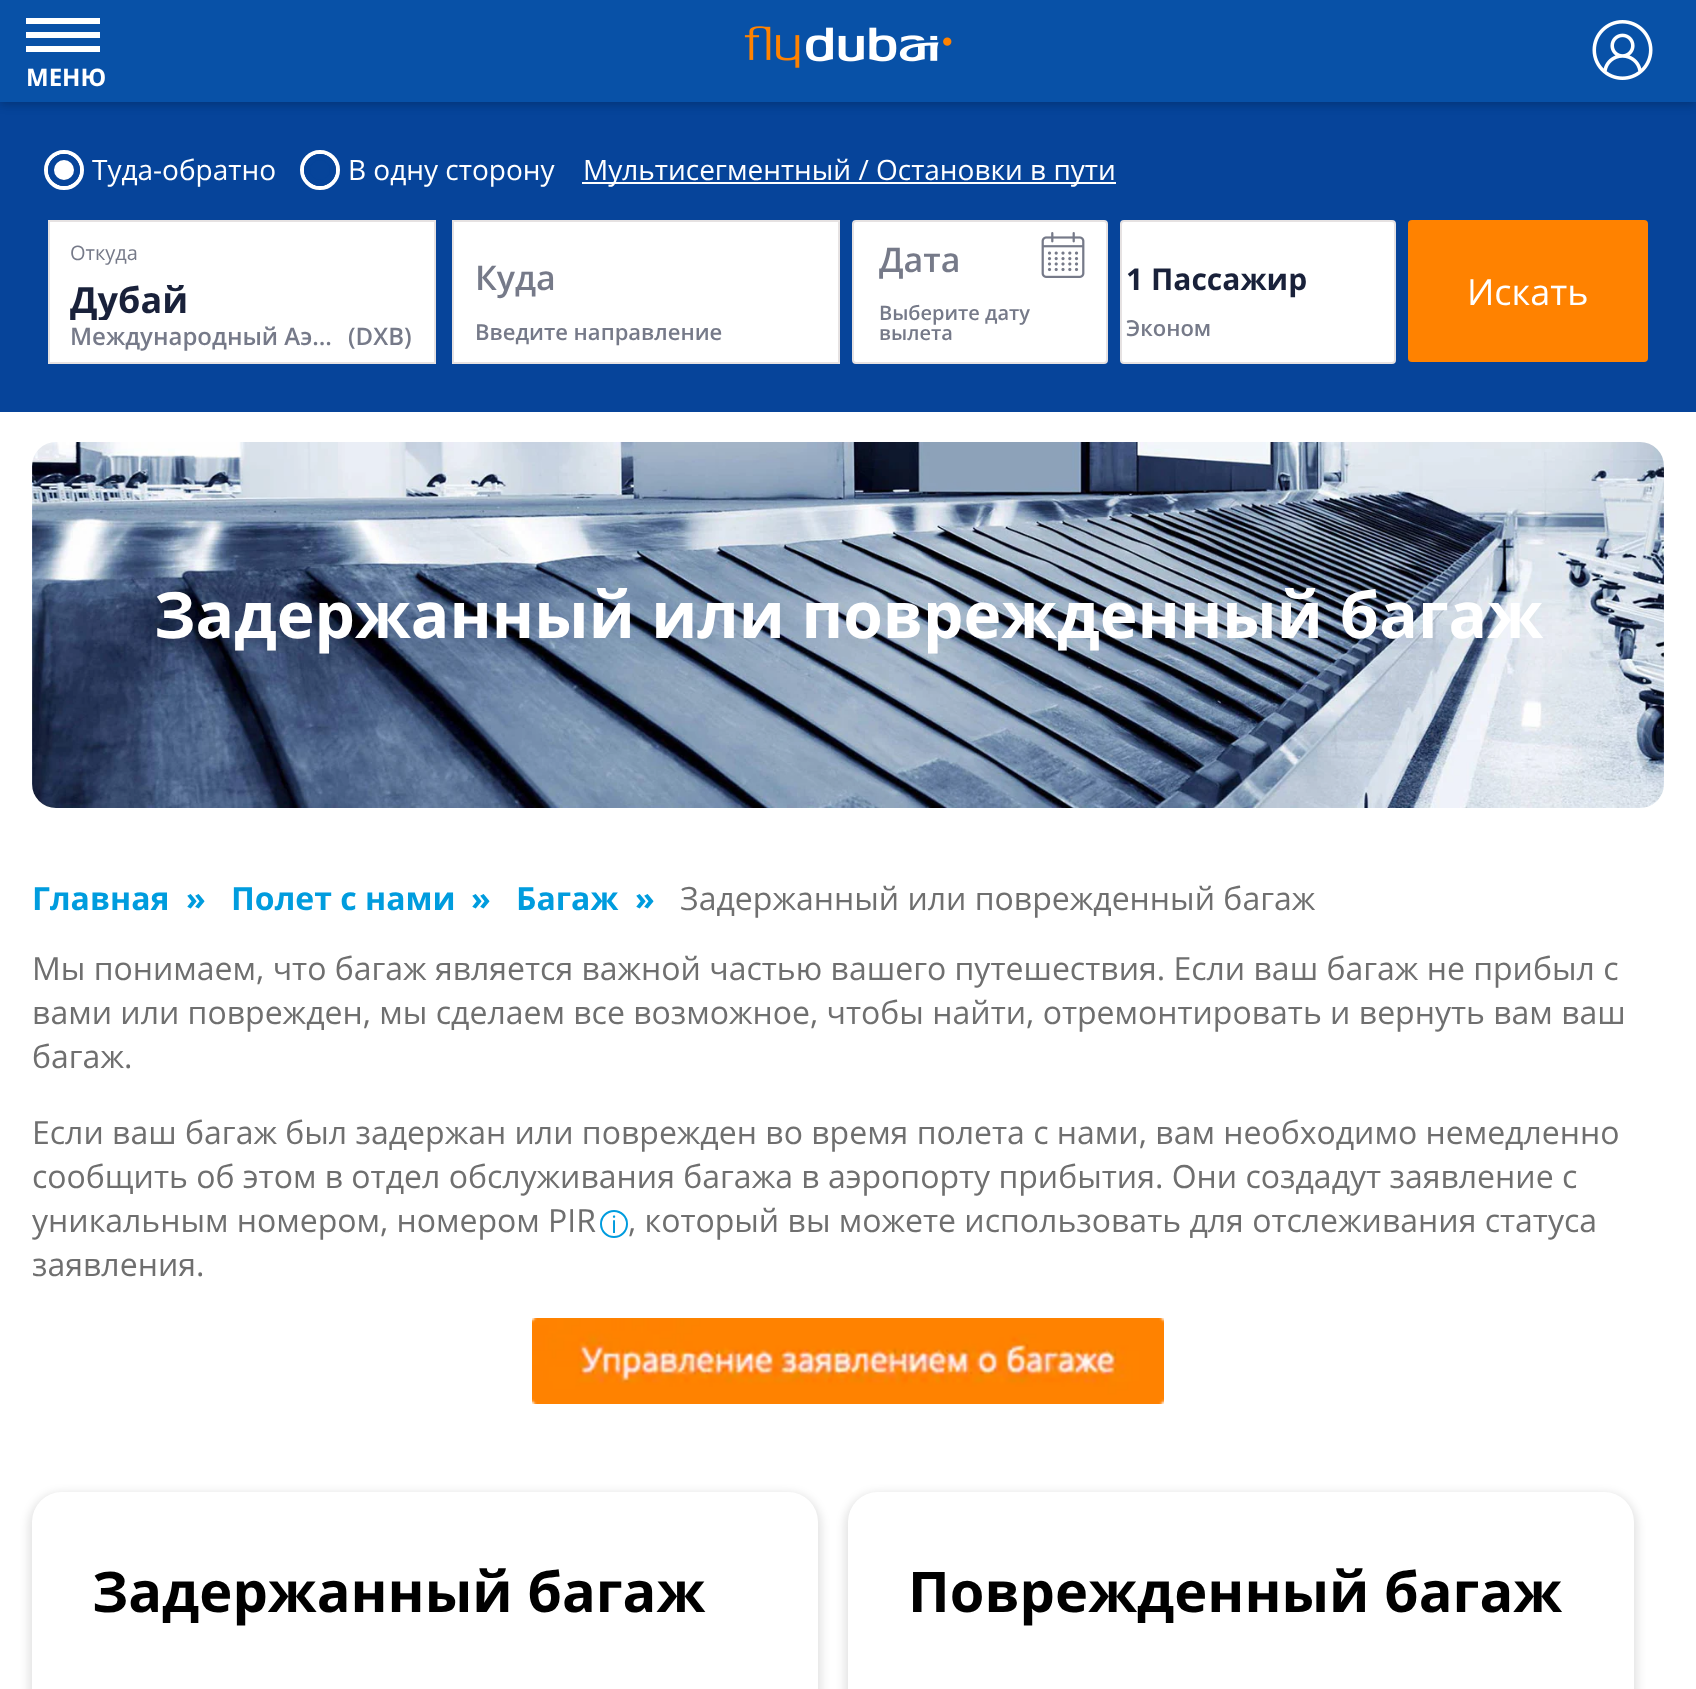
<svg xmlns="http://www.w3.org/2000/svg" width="1696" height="1689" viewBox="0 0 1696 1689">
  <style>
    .t1 { font: bold 24px Open Sans; fill: #fff; }
    .t2 { font: 28px Open Sans; fill: #fff; }
    .t3 { font: 20px Open Sans; fill: #767a89; }
    .t4 { font: bold 36px Open Sans; fill: #19213a; }
    .t5 { font: 600 24px Open Sans; fill: #767a89; }
    .t6 { font: 600 34px Open Sans; fill: #767a89; }
    .t7 { font: 600 22px Open Sans; fill: #767a89; }
    .t8 { font: 600 20px Open Sans; fill: #767a89; }
    .t9 { font: bold 30px Open Sans; fill: #19213a; }
    .t10 { font: 36px Open Sans; fill: #fff; }
    .t11 { font: bold 64px Open Sans; fill: #fff; }
    .t12 { font: bold 32px Open Sans; fill: #009cde; }
    .t13 { font: 32px Open Sans; fill: #6f6f6f; }
    .t14 { font: 24px Open Sans; fill: #009cde; }
    .t15 { font: bold 56px Open Sans; fill: #000; }
  </style>
  <defs>
    <clipPath id="clip1"><rect x="50" y="242" width="384" height="78" rx="6"/></clipPath>
  </defs>
  <rect width="100%" height="100%" fill="#fff"/>
  <rect x="0" y="102" width="1696" height="310" fill="#06449a"/>
  <rect x="0" y="0" width="1696" height="102" fill="#0000001f" filter="blur(4px)"/>
  <rect x="0" y="4" width="1696" height="102" fill="#00000021" filter="blur(4px)"/>
  <rect x="0" y="0" width="1696" height="102" fill="#0851a7"/>
  <image x="744" y="26" width="208" height="42" href="images/1.png"/>
  <image x="1592" y="20" width="61" height="60" href="images/2.png"/>
  <rect x="26" y="18" width="74" height="6" fill="#fff"/>
  <rect x="26" y="32" width="74" height="6" fill="#fff"/>
  <rect x="26" y="46" width="74" height="6" fill="#fff"/>
  <text x="26" y="86" class="t1">МЕНЮ</text>
  <circle cx="64" cy="170" r="18" fill="none" stroke="#fff" stroke-width="4"/>
  <circle cx="64" cy="170" r="13" fill="#fff" stroke="#06449a" stroke-width="6"/>
  <text x="92" y="180" class="t2">Туда-обратно</text>
  <circle cx="320" cy="170" r="18" fill="none" stroke="#fff" stroke-width="4"/>
  <circle cx="320" cy="170" r="13" fill="none" stroke="#06449a" stroke-width="6"/>
  <text x="348" y="180" class="t2">В одну сторону</text>
  <rect x="582" y="182" width="534" height="2" fill="#fff"/>
  <text x="583" y="180" class="t2">Мультисегментный / Остановки в пути</text>
  <rect x="49" y="221" width="386" height="142" fill="#fff" stroke="#e6e2e2" stroke-width="2"/>
  <text x="70" y="260" class="t3">Откуда</text>
  <g clip-path="url(#clip1)">
    <text x="70" y="313" class="t4">Дубай</text>
  </g>
  <text x="70" y="345" class="t5">Международный Аэ…</text>
  <text x="348" y="345" class="t5">(DXB)</text>
  <rect x="453" y="221" width="386" height="142" fill="#fff" stroke="#e6e2e2" stroke-width="2"/>
  <text x="475" y="290" class="t6">Куда</text>
  <text x="475" y="340" class="t7">Введите направление</text>
  <rect x="853" y="221" width="254" height="142" rx="3" fill="#fff" stroke="#e6e2e2" stroke-width="2"/>
  <text x="879" y="272" class="t6">Дата</text>
  <image x="1041" y="232" width="44" height="46" href="images/3.png"/>
  <text x="879" y="320" class="t8">Выберите дату</text>
  <text x="879" y="340" class="t8">вылета</text>
  <rect x="1121" y="221" width="274" height="142" rx="3" fill="#fff" stroke="#e6e2e2" stroke-width="2"/>
  <text x="1126" y="290" class="t9">1 Пассажир</text>
  <text x="1126" y="336" class="t7">Эконом</text>
  <rect x="1408" y="220" width="240" height="142" rx="4" fill="#ff8200"/>
  <text x="1467" y="305" class="t10">Искать</text>
  <image x="32" y="442" width="1632" height="366" href="images/4.png"/>
  <text x="154" y="638" class="t11">Задержанный или поврежденный багаж</text>
  <text x="32" y="910" class="t12">Главная</text>
  <text x="186" y="910" class="t12">»</text>
  <text x="231" y="910" class="t12">Полет с нами</text>
  <text x="471" y="910" class="t12">»</text>
  <text x="516" y="910" class="t12">Багаж</text>
  <text x="635" y="910" class="t12">»</text>
  <text x="680" y="910" class="t13">Задержанный или поврежденный багаж</text>
  <text x="32" y="980" class="t13">Мы понимаем, что багаж является важной частью вашего путешествия. Если ваш багаж не прибыл с</text>
  <text x="32" y="1024" class="t13">вами или поврежден, мы сделаем все возможное, чтобы найти, отремонтировать и вернуть вам ваш</text>
  <text x="32" y="1068" class="t13">багаж.</text>
  <text x="32" y="1144" class="t13">Если ваш багаж был задержан или поврежден во время полета с нами, вам необходимо немедленно</text>
  <text x="32" y="1188" class="t13">сообщить об этом в отдел обслуживания багажа в аэропорту прибытия. Они создадут заявление с</text>
  <text x="32" y="1232" class="t13">уникальным номером, номером PIR</text>
  <circle cx="614" cy="1224" r="13" fill="none" stroke="#009cde" stroke-width="2"/>
  <text x="611" y="1233" class="t14">i</text>
  <text x="628" y="1232" class="t13">, который вы можете использовать для отслеживания статуса</text>
  <text x="32" y="1276" class="t13">заявления.</text>
  <image x="532" y="1318" width="632" height="86" href="images/5.png"/>
  <rect x="28" y="1492" width="794" height="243" rx="34" fill="#0000001a" filter="blur(4px)"/>
  <rect x="32" y="1492" width="786" height="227" rx="30" fill="#fff"/>
  <text x="92" y="1612" class="t15">Задержанный багаж</text>
  <rect x="844" y="1492" width="794" height="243" rx="34" fill="#0000001a" filter="blur(4px)"/>
  <rect x="848" y="1492" width="786" height="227" rx="30" fill="#fff"/>
  <text x="908" y="1612" class="t15">Поврежденный багаж</text>
</svg>
